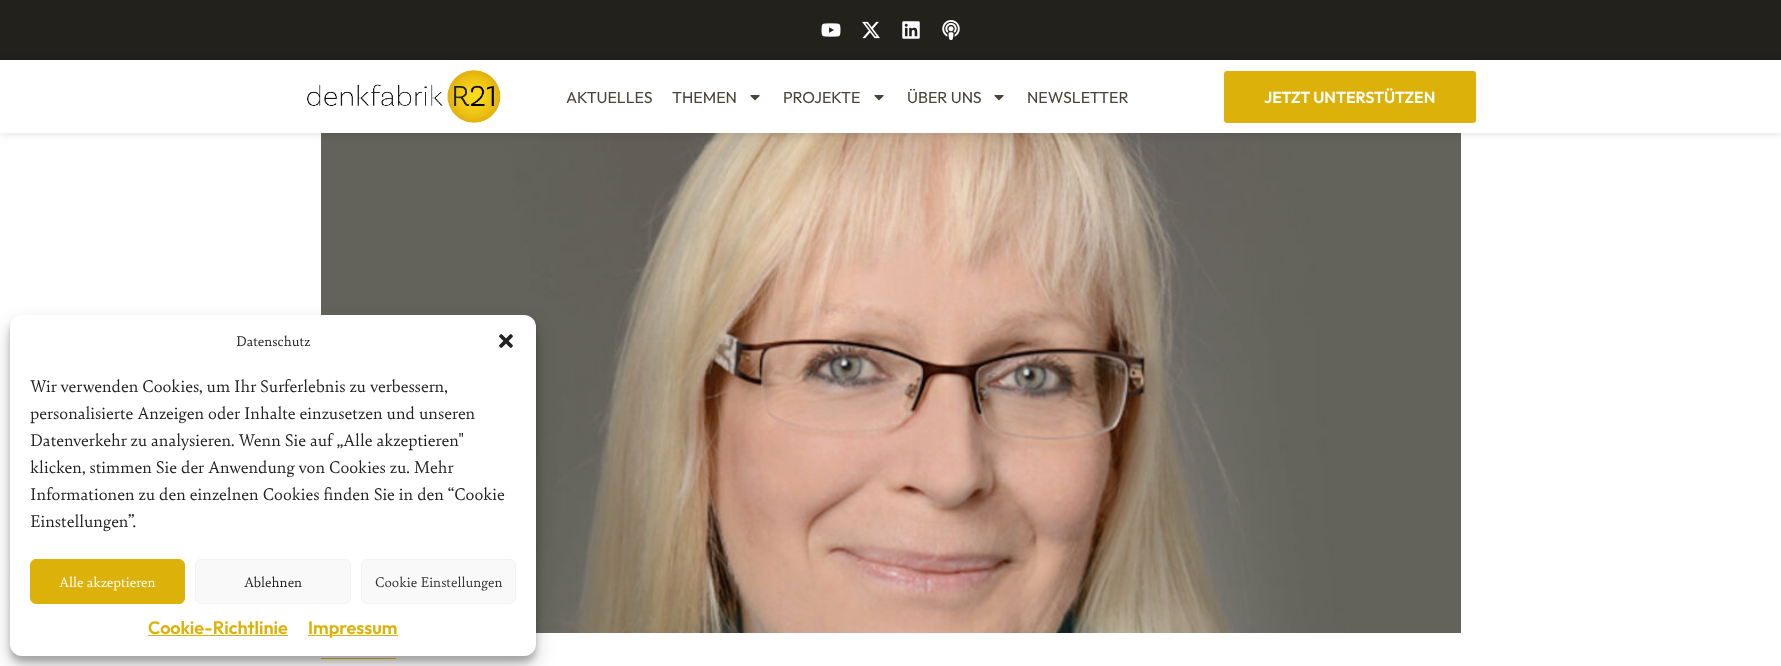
<svg xmlns="http://www.w3.org/2000/svg" width="1781" height="666" viewBox="0 0 1781 666">
  <style>
    .t1 { font: 16px Outfit; fill: #494538; }
    .t2 { font: 600 16px Outfit; fill: #fff; }
    .t3 { font: 15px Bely; fill: #222; }
    .t4 { font: 18px Bely; fill: #222; }
    .t5 { font: 15px Bely; fill: #fff; }
    .t6 { font: 15px Bely; fill: #333; }
    .t7 { font: 600 18px Outfit; fill: #dcb10a; }
  </style>
  <defs>
    <clipPath id="clip1"><path d="M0 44H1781V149H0ZM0 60H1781V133H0Z" clip-rule="evenodd"/></clipPath>
  </defs>
  <rect width="100%" height="100%" fill="#fff"/>
  <rect x="0" y="0" width="1781" height="60" fill="#22211b"/>
  <image x="821" y="23" width="20" height="14" href="images/1.png"/>
  <image x="862" y="21" width="18" height="18" href="images/2.png"/>
  <image x="902" y="21" width="18" height="18" href="images/3.png"/>
  <image x="942" y="20" width="18" height="20" href="images/4.png"/>
  <image x="321" y="133" width="1140" height="500" href="images/8.png"/>
  <g clip-path="url(#clip1)">
    <rect x="0" y="60" width="1781" height="73" fill="#00000024" filter="blur(5px)"/>
  </g>
  <image x="307" y="70" width="194" height="53" href="images/5.png"/>
  <text x="566" y="103" class="t1">AKTUELLES</text>
  <text x="672" y="103" class="t1">THEMEN</text>
  <image x="750" y="95" width="10" height="6" href="images/6.png"/>
  <text x="783" y="103" class="t1">PROJEKTE</text>
  <image x="874" y="95" width="10" height="6" href="images/6.png"/>
  <text x="907" y="103" class="t1">ÜBER UNS</text>
  <image x="994" y="95" width="10" height="6" href="images/6.png"/>
  <text x="1027" y="103" class="t1">NEWSLETTER</text>
  <rect x="1224" y="71" width="252" height="52" rx="3" fill="#dcb10a"/>
  <text x="1264" y="103" class="t2">JETZT UNTERSTÜTZEN</text>
  <rect x="321" y="658" width="75" height="1" fill="#ebbe12"/>
  <rect x="10" y="321" width="526" height="341" rx="12" fill="#0000003b" filter="blur(3px)"/>
  <rect x="10" y="325" width="526" height="341" rx="12" fill="#00000030" filter="blur(10px)"/>
  <rect x="10" y="315" width="526" height="341" rx="12" fill="#fff"/>
  <text x="236" y="346" class="t3">Datenschutz</text>
  <image x="499" y="334" width="14" height="14" href="images/7.png"/>
  <text x="30" y="392" class="t4">Wir verwenden Cookies, um Ihr Surferlebnis zu verbessern,</text>
  <text x="30" y="419" class="t4">personalisierte Anzeigen oder Inhalte einzusetzen und unseren</text>
  <text x="30" y="446" class="t4">Datenverkehr zu analysieren. Wenn Sie auf „Alle akzeptieren"</text>
  <text x="30" y="473" class="t4">klicken, stimmen Sie der Anwendung von Cookies zu. Mehr</text>
  <text x="30" y="500" class="t4">Informationen zu den einzelnen Cookies finden Sie in den “Cookie</text>
  <text x="30" y="527" class="t4">Einstellungen”.</text>
  <rect x="30.5" y="559.5" width="154" height="44" rx="5.5" fill="#dcb10a" stroke="#dcb10a"/>
  <text x="59" y="587" class="t5">Alle akzeptieren</text>
  <rect x="195.5" y="559.5" width="155" height="44" rx="5.5" fill="#f9f9f9" stroke="#f2f2f2"/>
  <text x="244" y="587" class="t3">Ablehnen</text>
  <rect x="361.5" y="559.5" width="154" height="44" rx="5.5" fill="#f9f9f9" stroke="#f2f2f2"/>
  <text x="375" y="587" class="t6">Cookie Einstellungen</text>
  <text x="148" y="634" class="t7">Cookie-Richtlinie</text>
  <rect x="148" y="635" width="140" height="1" fill="#dcb10a"/>
  <rect x="308" y="635" width="90" height="1" fill="#dcb10a"/>
  <text x="308" y="634" class="t7">Impressum</text>
</svg>
